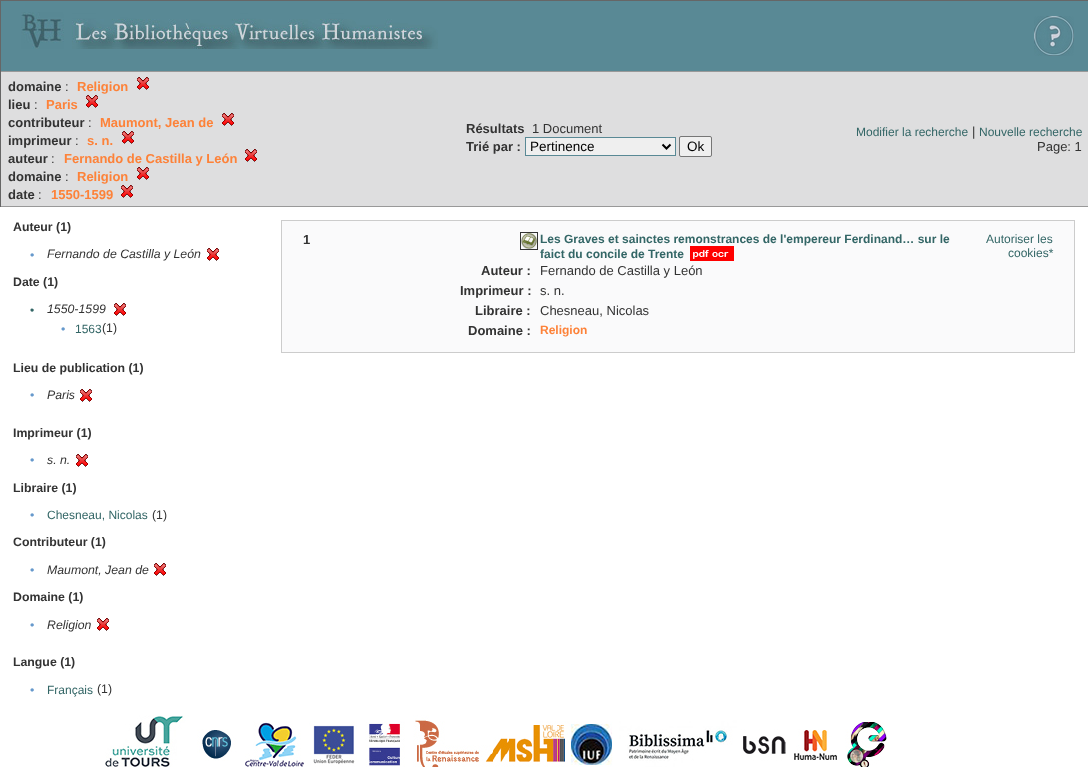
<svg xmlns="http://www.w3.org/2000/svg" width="1088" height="767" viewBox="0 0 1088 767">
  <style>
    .t1 { font: bold 13px Liberation Sans; fill: #333; }
    .t2 { font: 13px Liberation Sans; fill: #333; }
    .t3 { font: bold 13px Liberation Sans; fill: #fd8239; }
    .t4 { font: 13.5px Liberation Sans; fill: #000; }
    .t5 { font: 12px Liberation Sans; fill: #366; }
    .t6 { font: bold 12.3px Liberation Sans; fill: #333; }
    .t7 { font: 12.3px Liberation Sans; fill: #69c; }
    .t8 { font: italic 12.3px Liberation Sans; fill: #333; }
    .t9 { font: 12.3px Liberation Sans; fill: #333; }
    .t10 { font: bold 12px Liberation Sans; fill: #366; }
    .t11 { font: bold 12px Liberation Sans; fill: #fd8239; }
  </style>
  <rect width="100%" height="100%" fill="#598995"/>
  <rect x="0" y="0" width="1088" height="1" fill="#666"/>
  <rect x="0" y="0" width="1" height="71" fill="#666"/>
  <image x="21" y="12" width="417" height="37" href="images/1.png"/>
  <image x="1034" y="16" width="40" height="40" href="images/2.png"/>
  <rect x="1" y="72" width="1087" height="134" fill="#dededf"/>
  <rect x="0" y="71" width="1088" height="1" fill="#999"/>
  <rect x="0" y="206" width="1088" height="1" fill="#999"/>
  <rect x="0" y="71" width="1" height="136" fill="#666"/>
  <text x="8" y="91" class="t1">domaine</text>
  <text x="65" y="91" class="t2">:</text>
  <text x="77" y="91" class="t3">Religion</text>
  <image x="137" y="77" width="12" height="13" href="images/3.png"/>
  <text x="8" y="109" class="t1">lieu</text>
  <text x="34" y="109" class="t2">:</text>
  <text x="46" y="109" class="t3">Paris</text>
  <image x="86" y="95" width="12" height="13" href="images/3.png"/>
  <text x="8" y="127" class="t1">contributeur</text>
  <text x="88" y="127" class="t2">:</text>
  <text x="100" y="127" class="t3">Maumont, Jean de</text>
  <image x="222" y="113" width="12" height="13" href="images/3.png"/>
  <text x="8" y="145" class="t1">imprimeur</text>
  <text x="75" y="145" class="t2">:</text>
  <text x="87" y="145" class="t3">s. n.</text>
  <image x="122" y="131" width="12" height="13" href="images/3.png"/>
  <text x="8" y="163" class="t1">auteur</text>
  <text x="51" y="163" class="t2">:</text>
  <text x="64" y="163" class="t3">Fernando de Castilla y León</text>
  <image x="245" y="149" width="12" height="13" href="images/3.png"/>
  <text x="8" y="181" class="t1">domaine</text>
  <text x="65" y="181" class="t2">:</text>
  <text x="77" y="181" class="t3">Religion</text>
  <image x="137" y="167" width="12" height="13" href="images/3.png"/>
  <text x="8" y="199" class="t1">date</text>
  <text x="38" y="199" class="t2">:</text>
  <text x="51" y="199" class="t3">1550-1599</text>
  <image x="121" y="185" width="12" height="13" href="images/3.png"/>
  <text x="466" y="133" class="t1">Résultats</text>
  <text x="532" y="133" class="t2">1 Document</text>
  <text x="466" y="151" class="t1">Trié par :</text>
  <rect x="525.5" y="137.5" width="150" height="18" fill="#efefef" stroke="#598995"/>
  <path d="M662.5 144.5L666.5 148.5L670.5 144.5" fill="none" stroke="#000" stroke-width="2"/>
  <text x="530" y="151" class="t4">Pertinence</text>
  <rect x="679.5" y="136.5" width="32" height="20" rx="1.5" fill="#efefef" stroke="#767676"/>
  <text x="687" y="151" class="t4">Ok</text>
  <text x="856" y="136" class="t5">Modifier la recherche</text>
  <text x="972" y="136" class="t2">|</text>
  <text x="979" y="136" class="t5">Nouvelle recherche</text>
  <text x="1037" y="151" class="t2">Page: 1</text>
  <rect x="0" y="207" width="1088" height="560" fill="#fff"/>
  <text x="13" y="231" class="t6">Auteur (1)</text>
  <text x="30" y="259" class="t7">•</text>
  <text x="47" y="258" class="t8">Fernando de Castilla y León</text>
  <image x="207" y="248" width="12" height="13" href="images/4.png"/>
  <text x="13" y="286" class="t6">Date (1)</text>
  <text x="30" y="314" class="t5">•</text>
  <text x="47" y="313" class="t8">1550-1599</text>
  <image x="114" y="303" width="12" height="13" href="images/4.png"/>
  <text x="61" y="333" class="t7">•</text>
  <text x="75" y="333" class="t5">1563</text>
  <text x="102" y="332" class="t9">(1)</text>
  <text x="13" y="372" class="t6">Lieu de publication (1)</text>
  <text x="30" y="399" class="t7">•</text>
  <text x="47" y="399" class="t8">Paris</text>
  <image x="80" y="389" width="12" height="13" href="images/4.png"/>
  <text x="13" y="437" class="t6">Imprimeur (1)</text>
  <text x="30" y="464" class="t7">•</text>
  <text x="47" y="464" class="t8">s. n.</text>
  <image x="76" y="454" width="12" height="13" href="images/4.png"/>
  <text x="13" y="492" class="t6">Libraire (1)</text>
  <text x="30" y="519" class="t7">•</text>
  <text x="47" y="519" class="t5">Chesneau, Nicolas</text>
  <text x="152" y="519" class="t9">(1)</text>
  <text x="13" y="546" class="t6">Contributeur (1)</text>
  <text x="30" y="574" class="t7">•</text>
  <text x="47" y="574" class="t8">Maumont, Jean de</text>
  <image x="154" y="563" width="12" height="13" href="images/4.png"/>
  <text x="13" y="601" class="t6">Domaine (1)</text>
  <text x="30" y="629" class="t7">•</text>
  <text x="47" y="629" class="t8">Religion</text>
  <image x="97" y="618" width="12" height="13" href="images/4.png"/>
  <text x="13" y="666" class="t6">Langue (1)</text>
  <text x="30" y="694" class="t7">•</text>
  <text x="47" y="694" class="t5">Français</text>
  <text x="97" y="693" class="t9">(1)</text>
  <rect x="281.5" y="220.5" width="793" height="132" fill="#fafafb" stroke="#ccc"/>
  <text x="303" y="244" class="t1">1</text>
  <rect x="520.5" y="232.5" width="17" height="17" fill="none" stroke="#333"/>
  <image x="521" y="233" width="16" height="16" href="images/5.png"/>
  <text x="540" y="243" class="t10">Les Graves et sainctes remonstrances de l'empereur Ferdinand… sur le</text>
  <text x="540" y="258" class="t10">faict du concile de Trente</text>
  <image x="690" y="246" width="44" height="15" href="images/6.png"/>
  <text x="986" y="243" class="t5">Autoriser les</text>
  <text x="1008" y="257" class="t5">cookies*</text>
  <text x="481" y="275" class="t1">Auteur :</text>
  <text x="540" y="275" class="t2">Fernando de Castilla y León</text>
  <text x="460" y="295" class="t1">Imprimeur :</text>
  <text x="540" y="295" class="t2">s. n.</text>
  <text x="475" y="315" class="t1">Libraire :</text>
  <text x="540" y="315" class="t2">Chesneau, Nicolas</text>
  <text x="468" y="335" class="t1">Domaine :</text>
  <text x="540" y="334" class="t11">Religion</text>
  <image x="105" y="715" width="782" height="52" href="images/7.png"/>
</svg>
